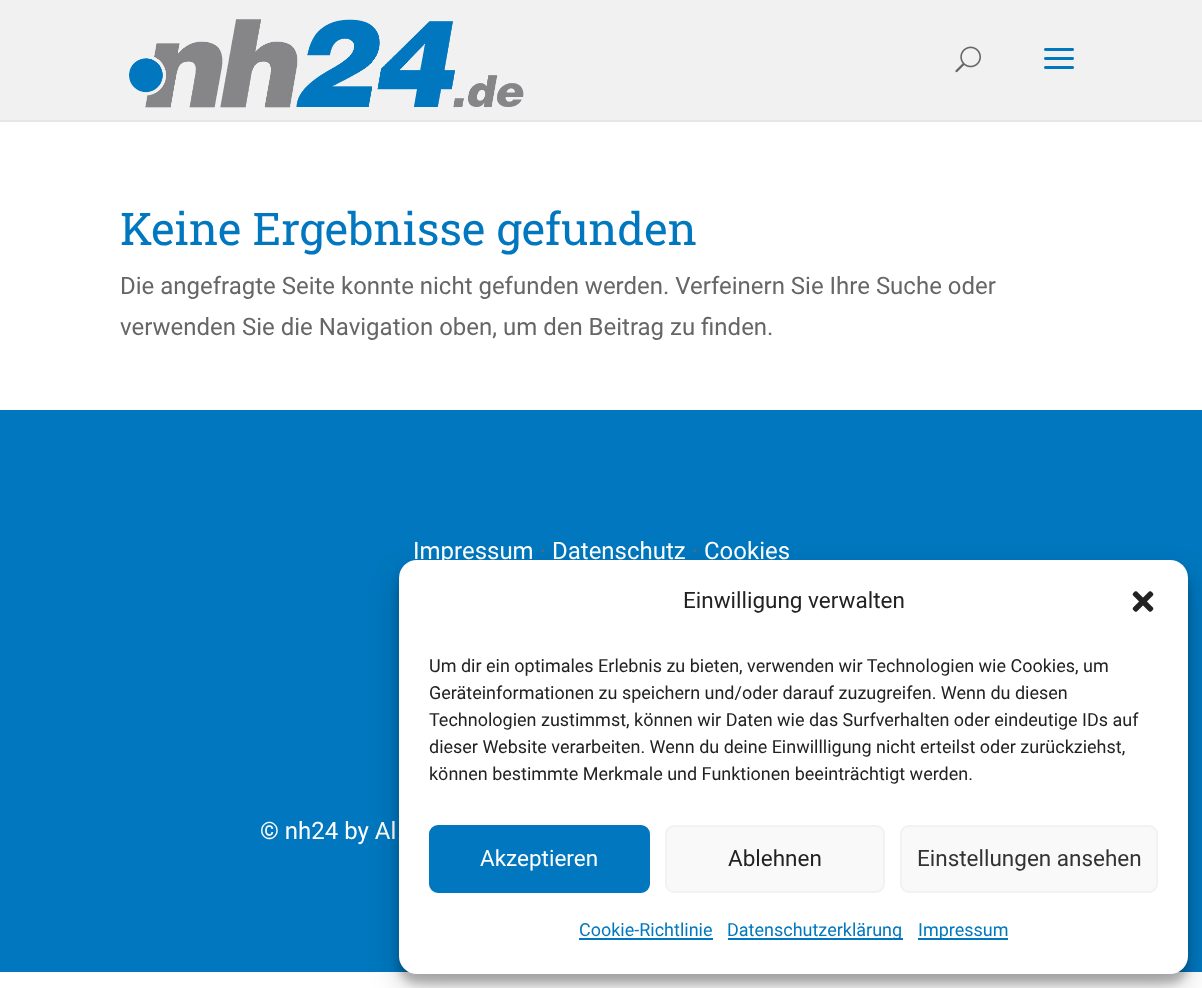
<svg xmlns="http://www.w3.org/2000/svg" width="1202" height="988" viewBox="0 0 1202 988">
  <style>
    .t1 { font: 45px Roboto Slab; fill: #0077be; }
    .t2 { font: 24px Roboto; fill: #666; }
    .t3 { font: 24px Roboto; fill: #fff; }
    .t4 { font: 22.5px Roboto; fill: #222; }
    .t5 { font: 18px Roboto; fill: #222; }
    .t6 { font: 22.5px Roboto; fill: #fff; }
    .t7 { font: 22.5px Roboto; fill: #333; }
    .t8 { font: 18px Roboto; fill: #0077be; }
  </style>
  <rect width="100%" height="100%" fill="#fff"/>
  <rect x="0" y="120" width="1202" height="2" fill="#e6e6e6"/>
  <rect x="0" y="0" width="1202" height="120" fill="#f1f1f1"/>
  <image x="129" y="19" width="395" height="89" href="images/1.png"/>
  <image x="955" y="46" width="26" height="27" href="images/2.png"/>
  <image x="1044" y="48" width="30" height="21" href="images/3.png"/>
  <text x="120" y="245" class="t1">Keine Ergebnisse gefunden</text>
  <text x="120" y="294" class="t2">Die angefragte Seite konnte nicht gefunden werden. Verfeinern Sie Ihre Suche oder</text>
  <text x="120" y="335" class="t2">verwenden Sie die Navigation oben, um den Beitrag zu finden.</text>
  <rect x="0" y="410" width="1202" height="562" fill="#0077be"/>
  <text x="413" y="559" class="t3">Impressum</text>
  <text x="540" y="559" class="t2">·</text>
  <text x="552" y="559" class="t3">Datenschutz</text>
  <text x="692" y="559" class="t2">·</text>
  <text x="704" y="559" class="t3">Cookies</text>
  <text x="260" y="839" class="t3">© nh24 by Al</text>
  <rect x="399" y="569" width="789" height="414" rx="18" fill="#0000003b" filter="blur(4.5px)"/>
  <rect x="399" y="575" width="789" height="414" rx="18" fill="#00000030" filter="blur(15px)"/>
  <rect x="399" y="560" width="789" height="414" rx="18" fill="#fff"/>
  <text x="683" y="608" class="t4">Einwilligung verwalten</text>
  <image x="1132" y="591" width="22" height="21" href="images/4.png"/>
  <text x="429" y="672" class="t5">Um dir ein optimales Erlebnis zu bieten, verwenden wir Technologien wie Cookies, um</text>
  <text x="429" y="699" class="t5">Geräteinformationen zu speichern und/oder darauf zuzugreifen. Wenn du diesen</text>
  <text x="429" y="726" class="t5">Technologien zustimmst, können wir Daten wie das Surfverhalten oder eindeutige IDs auf</text>
  <text x="429" y="753" class="t5">dieser Website verarbeiten. Wenn du deine Einwillligung nicht erteilst oder zurückziehst,</text>
  <text x="429" y="780" class="t5">können bestimmte Merkmale und Funktionen beeinträchtigt werden.</text>
  <rect x="430" y="826" width="219" height="66" rx="8" fill="#0077be" stroke="#0077be" stroke-width="2"/>
  <text x="480" y="866" class="t6">Akzeptieren</text>
  <rect x="666" y="826" width="218" height="66" rx="8" fill="#f9f9f9" stroke="#f2f2f2" stroke-width="2"/>
  <text x="728" y="866" class="t4">Ablehnen</text>
  <rect x="901" y="826" width="256" height="66" rx="8" fill="#f9f9f9" stroke="#f2f2f2" stroke-width="2"/>
  <text x="917" y="866" class="t7">Einstellungen ansehen</text>
  <text x="579" y="936" class="t8">Cookie-Richtlinie</text>
  <rect x="579" y="938" width="134" height="2" fill="#0077be"/>
  <rect x="728" y="938" width="175" height="2" fill="#0077be"/>
  <text x="727" y="936" class="t8">Datenschutzerklärung</text>
  <rect x="918" y="938" width="90" height="2" fill="#0077be"/>
  <text x="918" y="936" class="t8">Impressum</text>
</svg>
